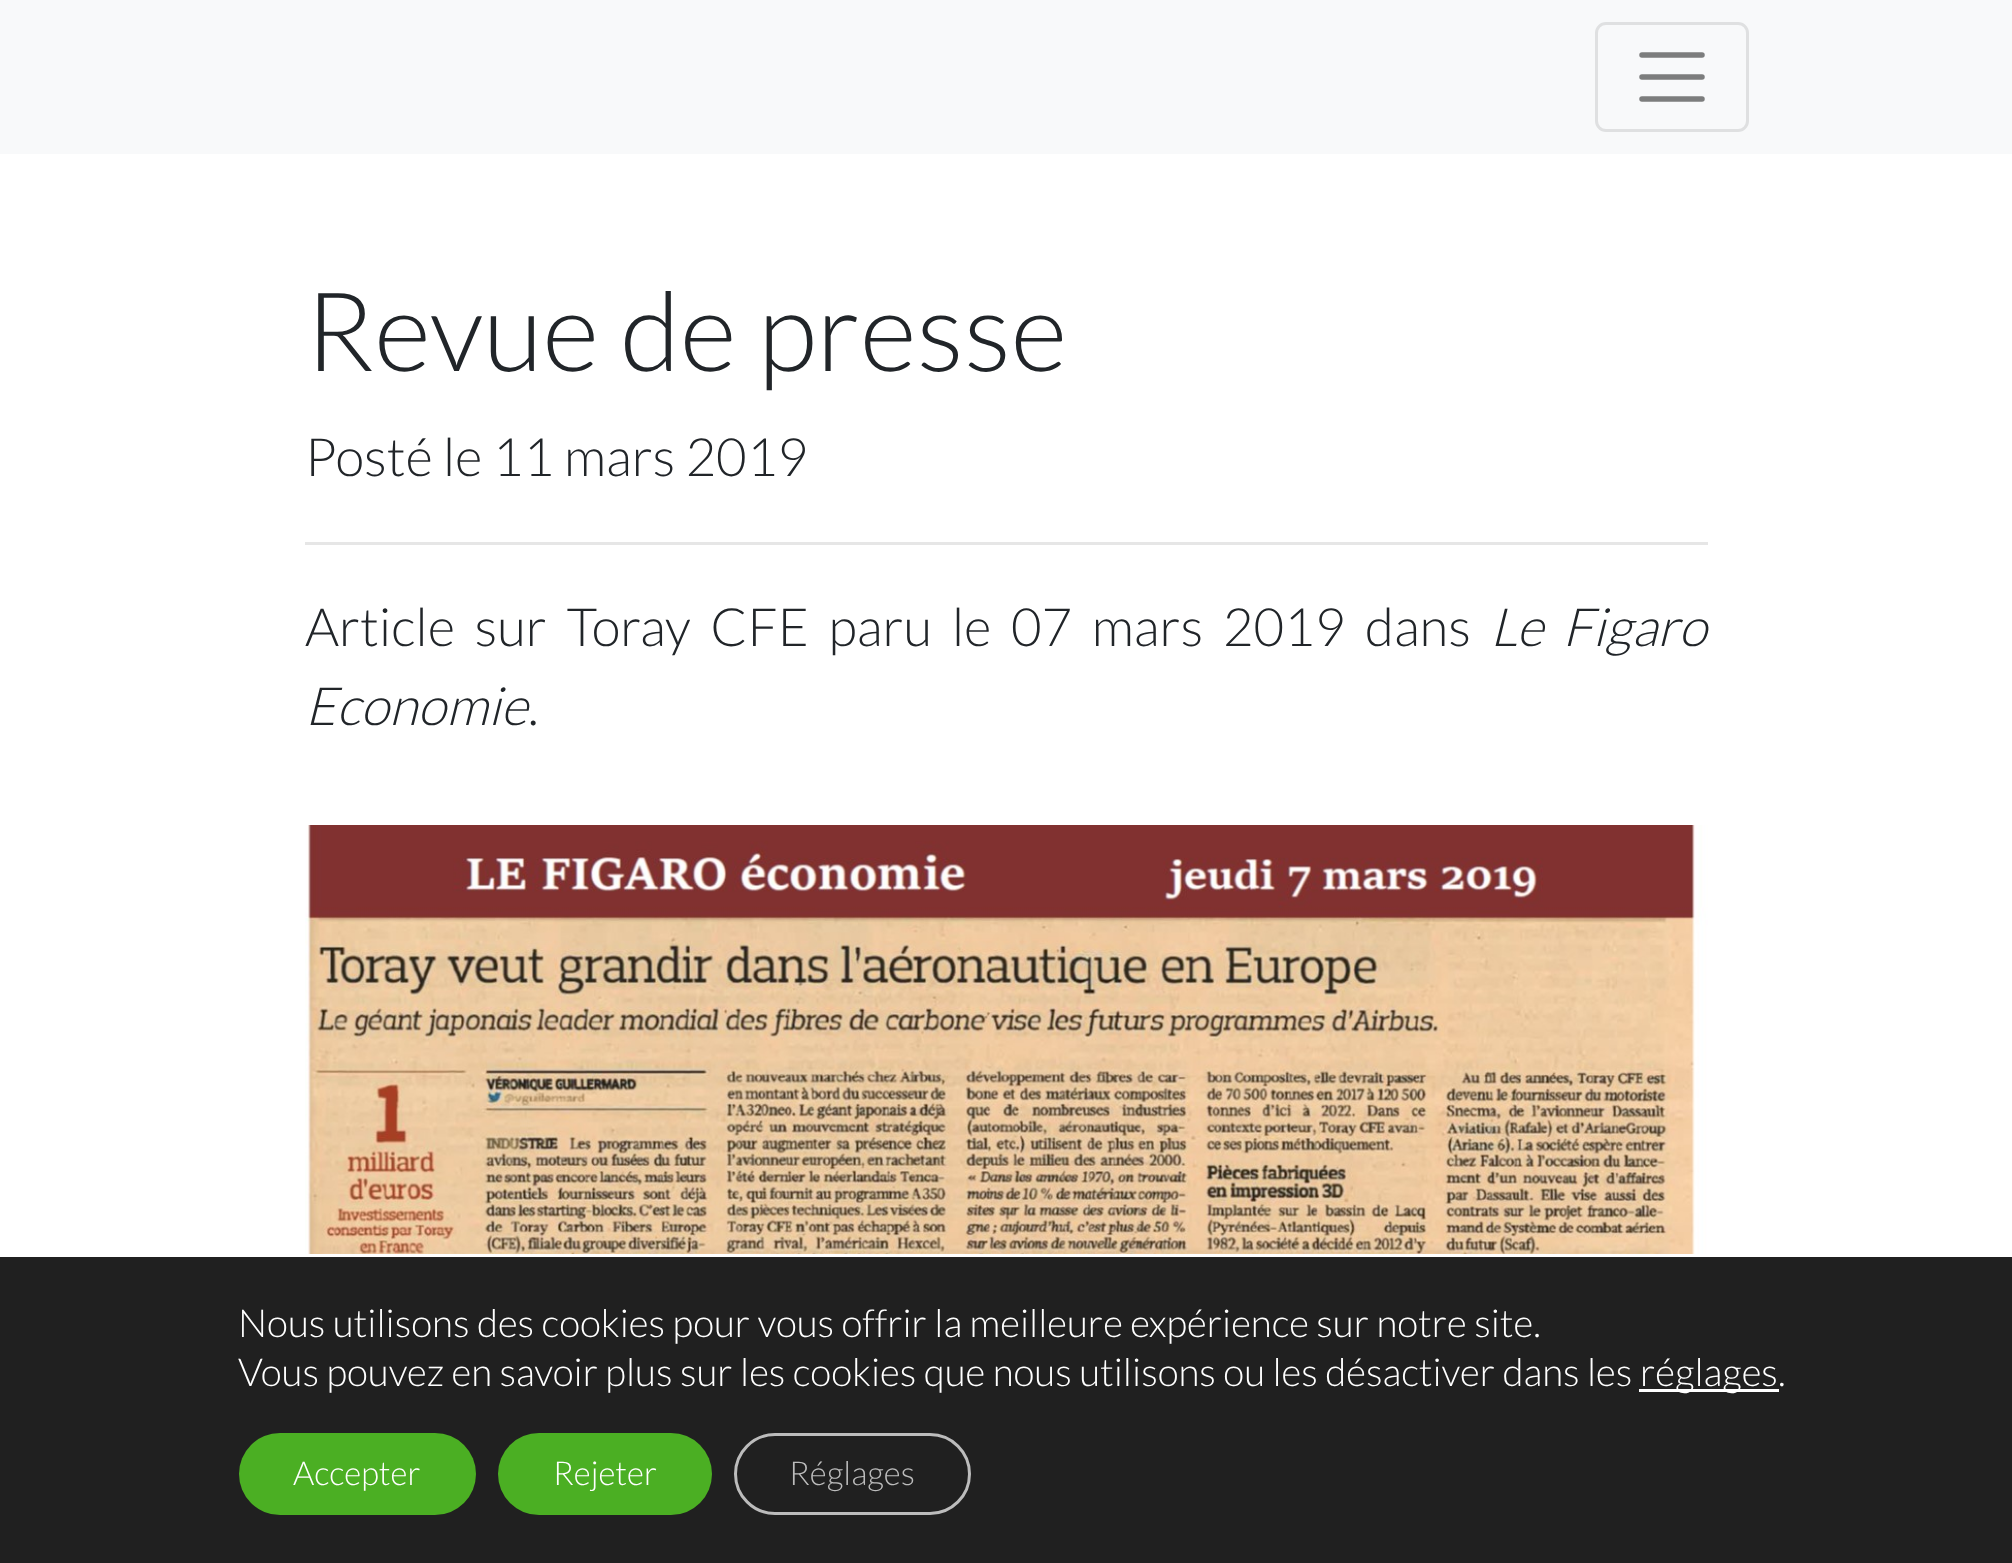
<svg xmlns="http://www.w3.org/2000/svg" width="2012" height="1563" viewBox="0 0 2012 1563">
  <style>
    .t1 { font: 300 110px Lato; fill: #212529; }
    .t2 { font: 300 52.8px Lato; fill: #212529; }
    .t3 { font: italic 300 52.8px Lato; fill: #212529; }
    .t4 { font: 300 38.5px Lato; fill: #fff; }
    .t5 { font: 300 33px Lato; fill: #fff; }
    .t6 { font: 300 33px Lato; fill: #bcbcbc; }
  </style>
  <rect width="100%" height="100%" fill="#fff"/>
  <rect x="0" y="0" width="2012" height="154" fill="#f8f9fa"/>
  <rect x="1596.5" y="23.5" width="151" height="107" rx="9.5" fill="none" stroke="#dfe0e1" stroke-width="3"/>
  <path d="M1642 55H1702M1642 77H1702M1642 99H1702" fill="none" stroke="#7c7d7d" stroke-width="5.5" stroke-linecap="round"/>
  <text x="305" y="371" class="t1">Revue de presse</text>
  <text x="305" y="476" class="t2">Posté le 11 mars 2019</text>
  <rect x="305" y="542" width="1403" height="3" fill="#e6e6e6"/>
  <text x="305" y="646" word-spacing="9.5" class="t2">Article sur Toray CFE paru le 07 mars 2019 dans</text>
  <text x="1490" y="646" word-spacing="9" class="t3">Le Figaro</text>
  <text x="305" y="725" class="t3">Economie</text>
  <text x="528" y="725" class="t2">.</text>
  <image x="305" y="825" width="1403" height="429" href="images/1.png"/>
  <rect x="0" y="1257" width="2012" height="306" fill="#202020"/>
  <text x="238" y="1337" class="t4">Nous utilisons des cookies pour vous offrir la meilleure expérience sur notre site.</text>
  <text x="238" y="1386" class="t4">Vous pouvez en savoir plus sur les cookies que nous utilisons ou les désactiver dans les</text>
  <rect x="1639" y="1389" width="140" height="3" fill="#fff"/>
  <text x="1640" y="1386" class="t4">réglages.</text>
  <rect x="239" y="1433" width="237" height="82" rx="41" fill="#4baf23"/>
  <text x="293" y="1485" class="t5">Accepter</text>
  <rect x="498" y="1433" width="214" height="82" rx="41" fill="#4baf23"/>
  <text x="553" y="1485" class="t5">Rejeter</text>
  <rect x="735.5" y="1434.5" width="234" height="79" rx="39.5" fill="none" stroke="#bcbcbc" stroke-width="3"/>
  <text x="789" y="1485" class="t6">Réglages</text>
</svg>
